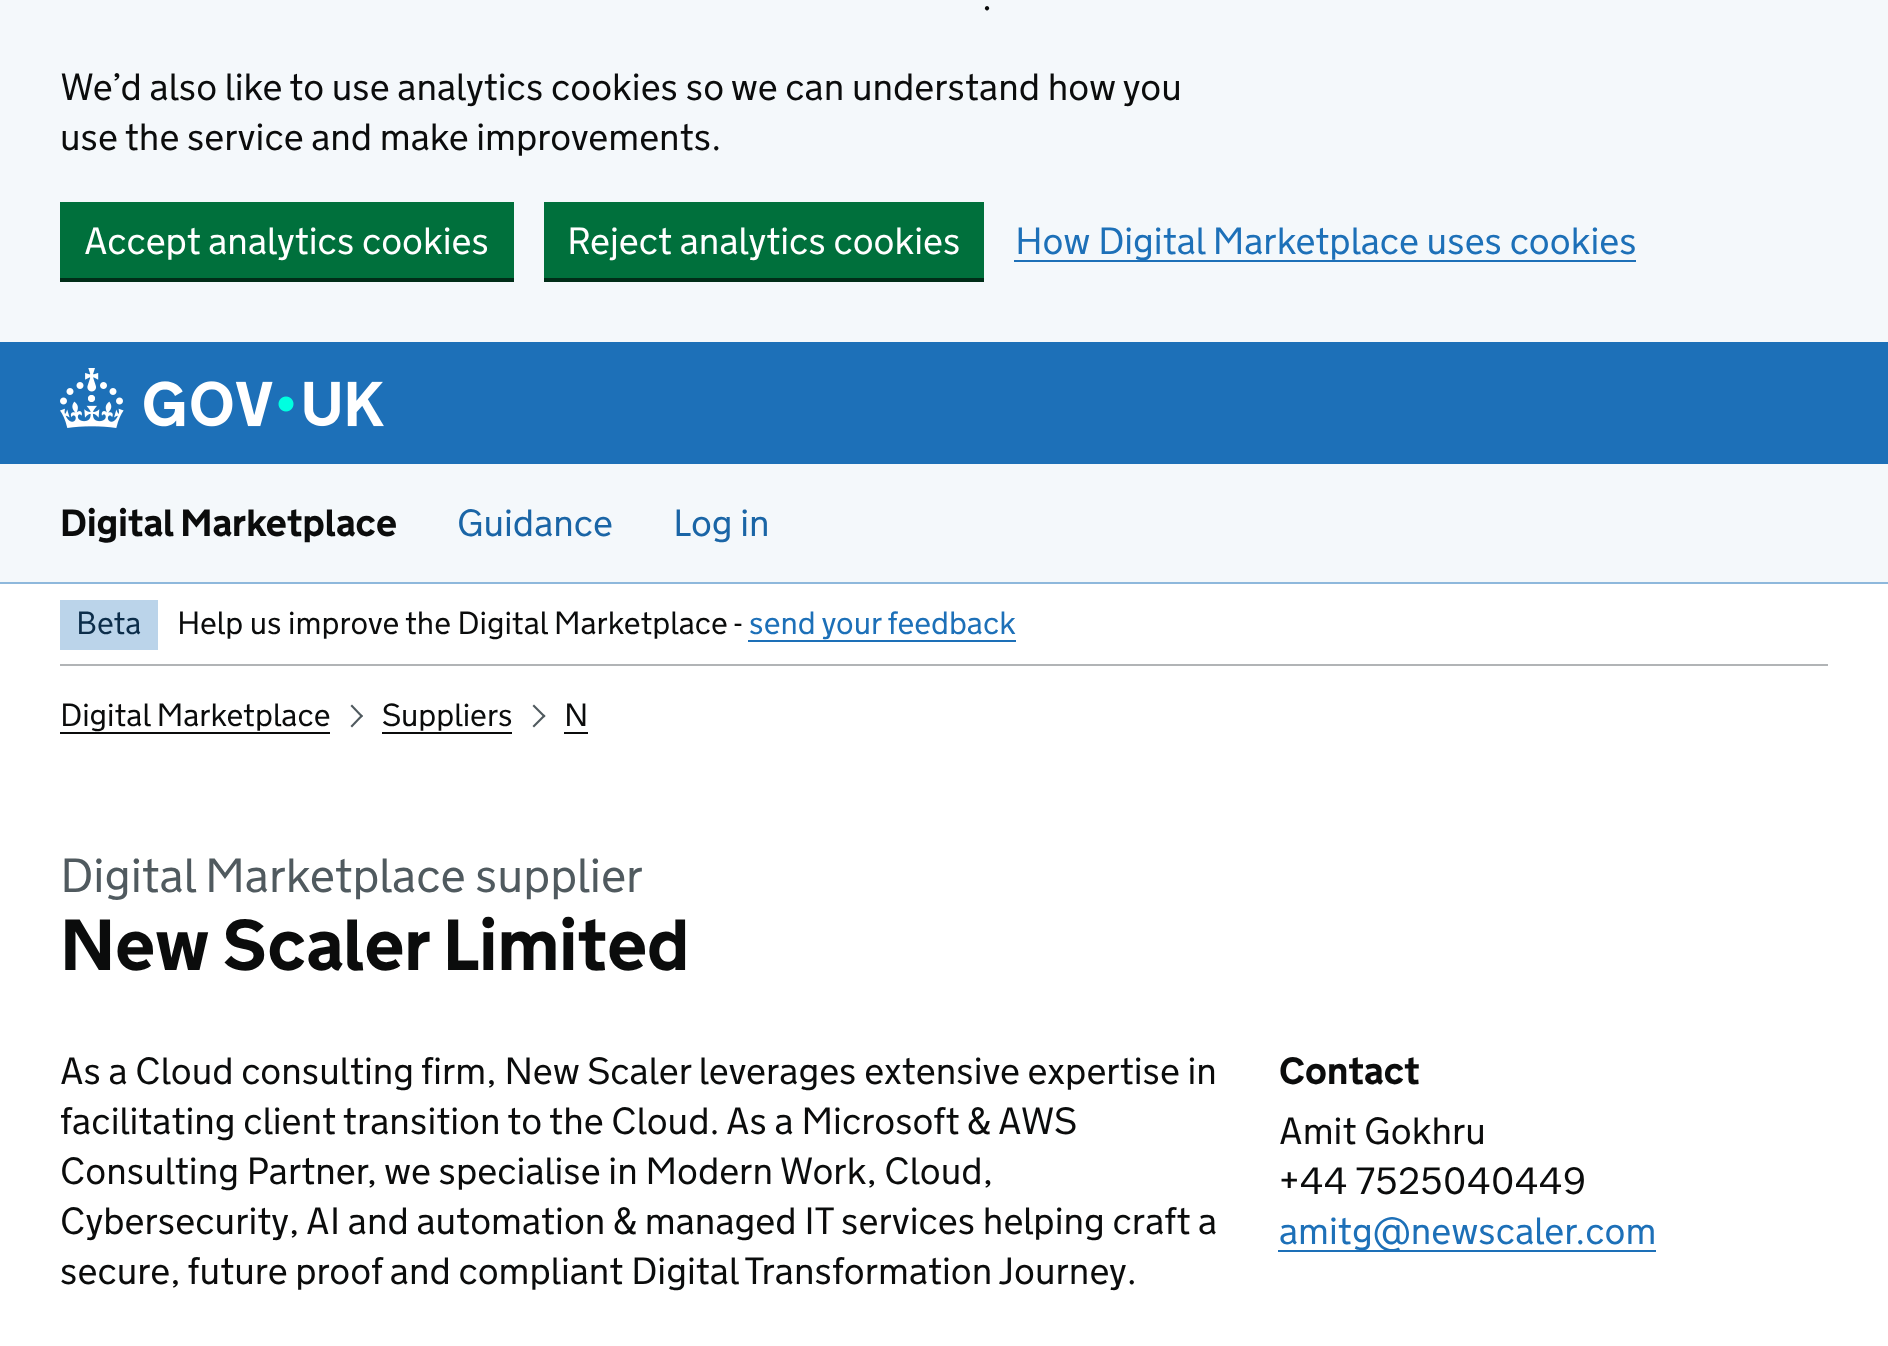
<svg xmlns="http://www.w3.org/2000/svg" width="1888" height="1346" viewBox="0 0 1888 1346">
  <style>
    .t1 { font: 300 38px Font; fill: #0b0c0c; }
    .t2 { font: 300 38px Font; fill: #fff; }
    .t3 { font: 300 38px Font; fill: #1d70b8; }
    .t4 { font: bold 38px Font; fill: #0b0c0c; }
    .t5 { font: 300 38px Font; fill: #1a65a6; }
    .t6 { font: 300 32px Font; fill: #0c2d4a; }
    .t7 { font: 300 32px Font; fill: #0b0c0c; }
    .t8 { font: 300 32px Font; fill: #1d70b8; }
    .t9 { font: 300 48px Font; fill: #505a5f; }
    .t10 { font: bold 72px Font; fill: #0b0c0c; }
  </style>
  <rect width="100%" height="100%" fill="#fff"/>
  <rect x="0" y="0" width="1888" height="342" fill="#f4f8fb"/>
  <text x="982" y="10" class="t1">.</text>
  <text x="60" y="100" class="t1">We’d also like to use analytics cookies so we can understand how you</text>
  <text x="60" y="150" class="t1">use the service and make improvements.</text>
  <rect x="60" y="278" width="454" height="4" fill="#002d18"/>
  <rect x="60" y="202" width="454" height="76" fill="#00703c"/>
  <text x="84" y="254" class="t2">Accept analytics cookies</text>
  <rect x="544" y="278" width="440" height="4" fill="#002d18"/>
  <rect x="544" y="202" width="440" height="76" fill="#00703c"/>
  <text x="567" y="254" class="t2">Reject analytics cookies</text>
  <rect x="1014" y="260" width="622" height="2" fill="#1d70b8"/>
  <text x="1015" y="254" class="t3">How Digital Marketplace uses cookies</text>
  <rect x="0" y="342" width="1888" height="122" fill="#1d70b8"/>
  <image x="60" y="368" width="324" height="60" href="images/1.png"/>
  <rect x="0" y="464" width="1888" height="118" fill="#f4f8fb"/>
  <rect x="0" y="582" width="1888" height="2" fill="#8eb8dc"/>
  <text x="60" y="536" class="t4">Digital Marketplace</text>
  <text x="457" y="536" class="t5">Guidance</text>
  <text x="673" y="536" class="t5">Log in</text>
  <rect x="60" y="664" width="1768" height="2" fill="#b1b4b6"/>
  <rect x="60" y="600" width="98" height="50" fill="#bbd4ea"/>
  <text x="76" y="634" class="t6">Beta</text>
  <text x="177" y="634" class="t7">Help us improve the Digital Marketplace -</text>
  <text x="749" y="634" class="t8">send your feedback</text>
  <rect x="748" y="640" width="268" height="2" fill="#1d70b8"/>
  <text x="60" y="726" class="t7">Digital Marketplace</text>
  <rect x="60" y="732" width="270" height="2" fill="#0b0c0c"/>
  <path d="M352 704.5L363 716L361.5 717.5L350.5 706Z" fill="#505a5f"/>
  <path d="M361.5 714.5L363 716L352 727.5L350.5 726Z" fill="#505a5f"/>
  <text x="382" y="726" class="t7">Suppliers</text>
  <rect x="382" y="732" width="130" height="2" fill="#0b0c0c"/>
  <path d="M534 704.5L545.5 716L544 717.5L532.5 706Z" fill="#505a5f"/>
  <path d="M544 714.5L545.5 716L534 727.5L532.5 726Z" fill="#505a5f"/>
  <text x="564" y="726" class="t7">N</text>
  <rect x="564" y="732" width="24" height="2" fill="#0b0c0c"/>
  <text x="60" y="892" class="t9">Digital Marketplace supplier</text>
  <text x="60" y="970" class="t10">New Scaler Limited</text>
  <text x="60" y="1084" class="t1">As a Cloud consulting firm, New Scaler leverages extensive expertise in</text>
  <text x="60" y="1134" class="t1">facilitating client transition to the Cloud.</text>
  <text x="726" y="1134" class="t1">As a Microsoft &amp; AWS</text>
  <text x="60" y="1184" class="t1">Consulting Partner, we specialise in Modern Work, Cloud,</text>
  <text x="60" y="1234" class="t1">Cybersecurity, AI and automation &amp; managed IT services helping craft a</text>
  <text x="60" y="1284" class="t1">secure, future proof and compliant Digital Transformation Journey.</text>
  <text x="1279" y="1084" class="t4">Contact</text>
  <text x="1279" y="1144" class="t1">Amit Gokhru</text>
  <text x="1279" y="1194" class="t1">+44 7525040449</text>
  <rect x="1278" y="1250" width="378" height="2" fill="#1d70b8"/>
  <text x="1279" y="1244" class="t3">amitg@newscaler.com</text>
</svg>
